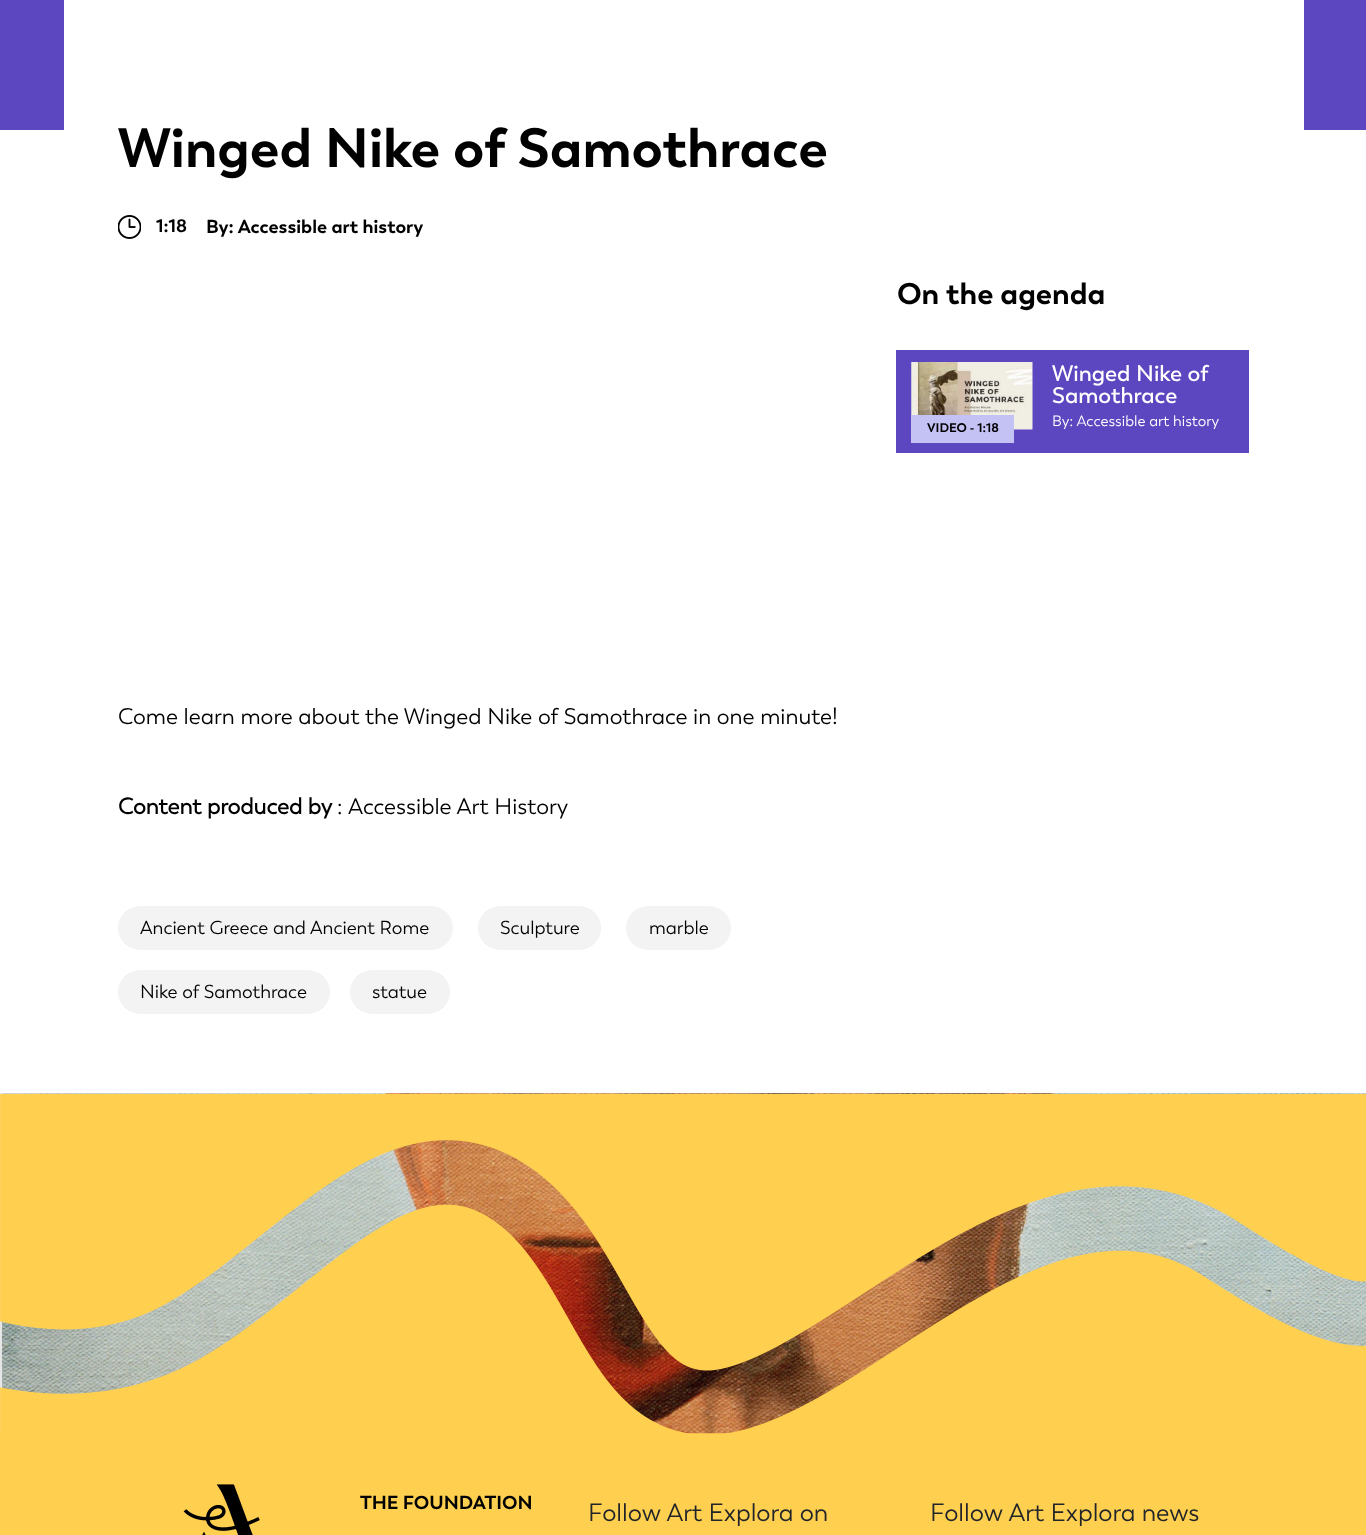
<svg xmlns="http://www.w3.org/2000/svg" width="1366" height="1535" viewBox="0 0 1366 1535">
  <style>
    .t1 { font: bold 55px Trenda; fill: #000; }
    .t2 { font: bold 18px Trenda; fill: #000; }
    .t3 { font: bold 18.75px Trenda; fill: #000; }
    .t4 { font: bold 30px Trenda; fill: #000; }
    .t5 { font: bold 12.5px Trenda; fill: #000; }
    .t6 { font: 600 22.5px Trenda; fill: #fff; }
    .t7 { font: 15px Trenda; fill: #fff; }
    .t8 { font: 22.5px Trenda; fill: #000; }
    .t9 { font: bold 22.5px 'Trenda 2'; fill: #000; }
    .t10 { font: 18.75px Trenda; fill: #000; }
    .t11 { font: 25px Trenda; fill: #212529; }
  </style>
  <rect width="100%" height="100%" fill="#fff"/>
  <rect x="0" y="0" width="1366" height="130" fill="#5d47c1"/>
  <rect x="64" y="0" width="1240" height="130" fill="#fff"/>
  <text x="118" y="167" class="t1">Winged Nike of Samothrace</text>
  <image x="118" y="215" width="23" height="24" href="images/1.png"/>
  <text x="156" y="232" class="t2">1:18</text>
  <text x="206" y="233" class="t3">By: Accessible art history</text>
  <text x="897" y="304" class="t4">On the agenda</text>
  <rect x="896" y="350" width="353" height="103" fill="#5d47c1"/>
  <image x="911" y="362" width="122" height="68" href="images/2.png"/>
  <rect x="911" y="415" width="103" height="28" fill="#c4c1f4"/>
  <text x="927" y="432" class="t5">VIDEO - 1:18</text>
  <text x="1052" y="381" class="t6">Winged</text>
  <text x="1136" y="381" class="t6">Nike of</text>
  <text x="1052" y="403" class="t6">Samothrace</text>
  <text x="1052" y="426" class="t7">By: Accessible art history</text>
  <text x="118" y="724" class="t8">Come learn more about the Winged Nike of Samothrace in one minute!</text>
  <text x="118" y="814" class="t9">Content produced by</text>
  <text x="337" y="814" class="t8">:</text>
  <text x="348" y="814" class="t8">Accessible Art History</text>
  <rect x="118" y="906" width="335" height="44" rx="22" fill="#f3f3f3"/>
  <text x="140" y="934" class="t10">Ancient Greece and Ancient Rome</text>
  <rect x="478" y="906" width="123" height="44" rx="22" fill="#f3f3f3"/>
  <text x="500" y="934" class="t10">Sculpture</text>
  <rect x="626" y="906" width="105" height="44" rx="22" fill="#f3f3f3"/>
  <text x="649" y="934" class="t10">marble</text>
  <rect x="118" y="970" width="212" height="44" rx="22" fill="#f3f3f3"/>
  <text x="140" y="998" class="t10">Nike of Samothrace</text>
  <rect x="350" y="970" width="100" height="44" rx="22" fill="#f3f3f3"/>
  <text x="372" y="998" class="t10">statue</text>
  <rect x="0" y="1433" width="1366" height="102" fill="#ffd050"/>
  <image x="0" y="1093" width="1366" height="341" href="images/3.png"/>
  <image x="0" y="1094" width="1366" height="340" href="images/4.png"/>
  <image x="183" y="1484" width="77" height="51" href="images/5.png"/>
  <text x="360" y="1509" class="t3">THE FOUNDATION</text>
  <text x="588" y="1521" class="t11">Follow Art Explora on</text>
  <text x="930" y="1521" class="t11">Follow Art Explora news</text>
</svg>
